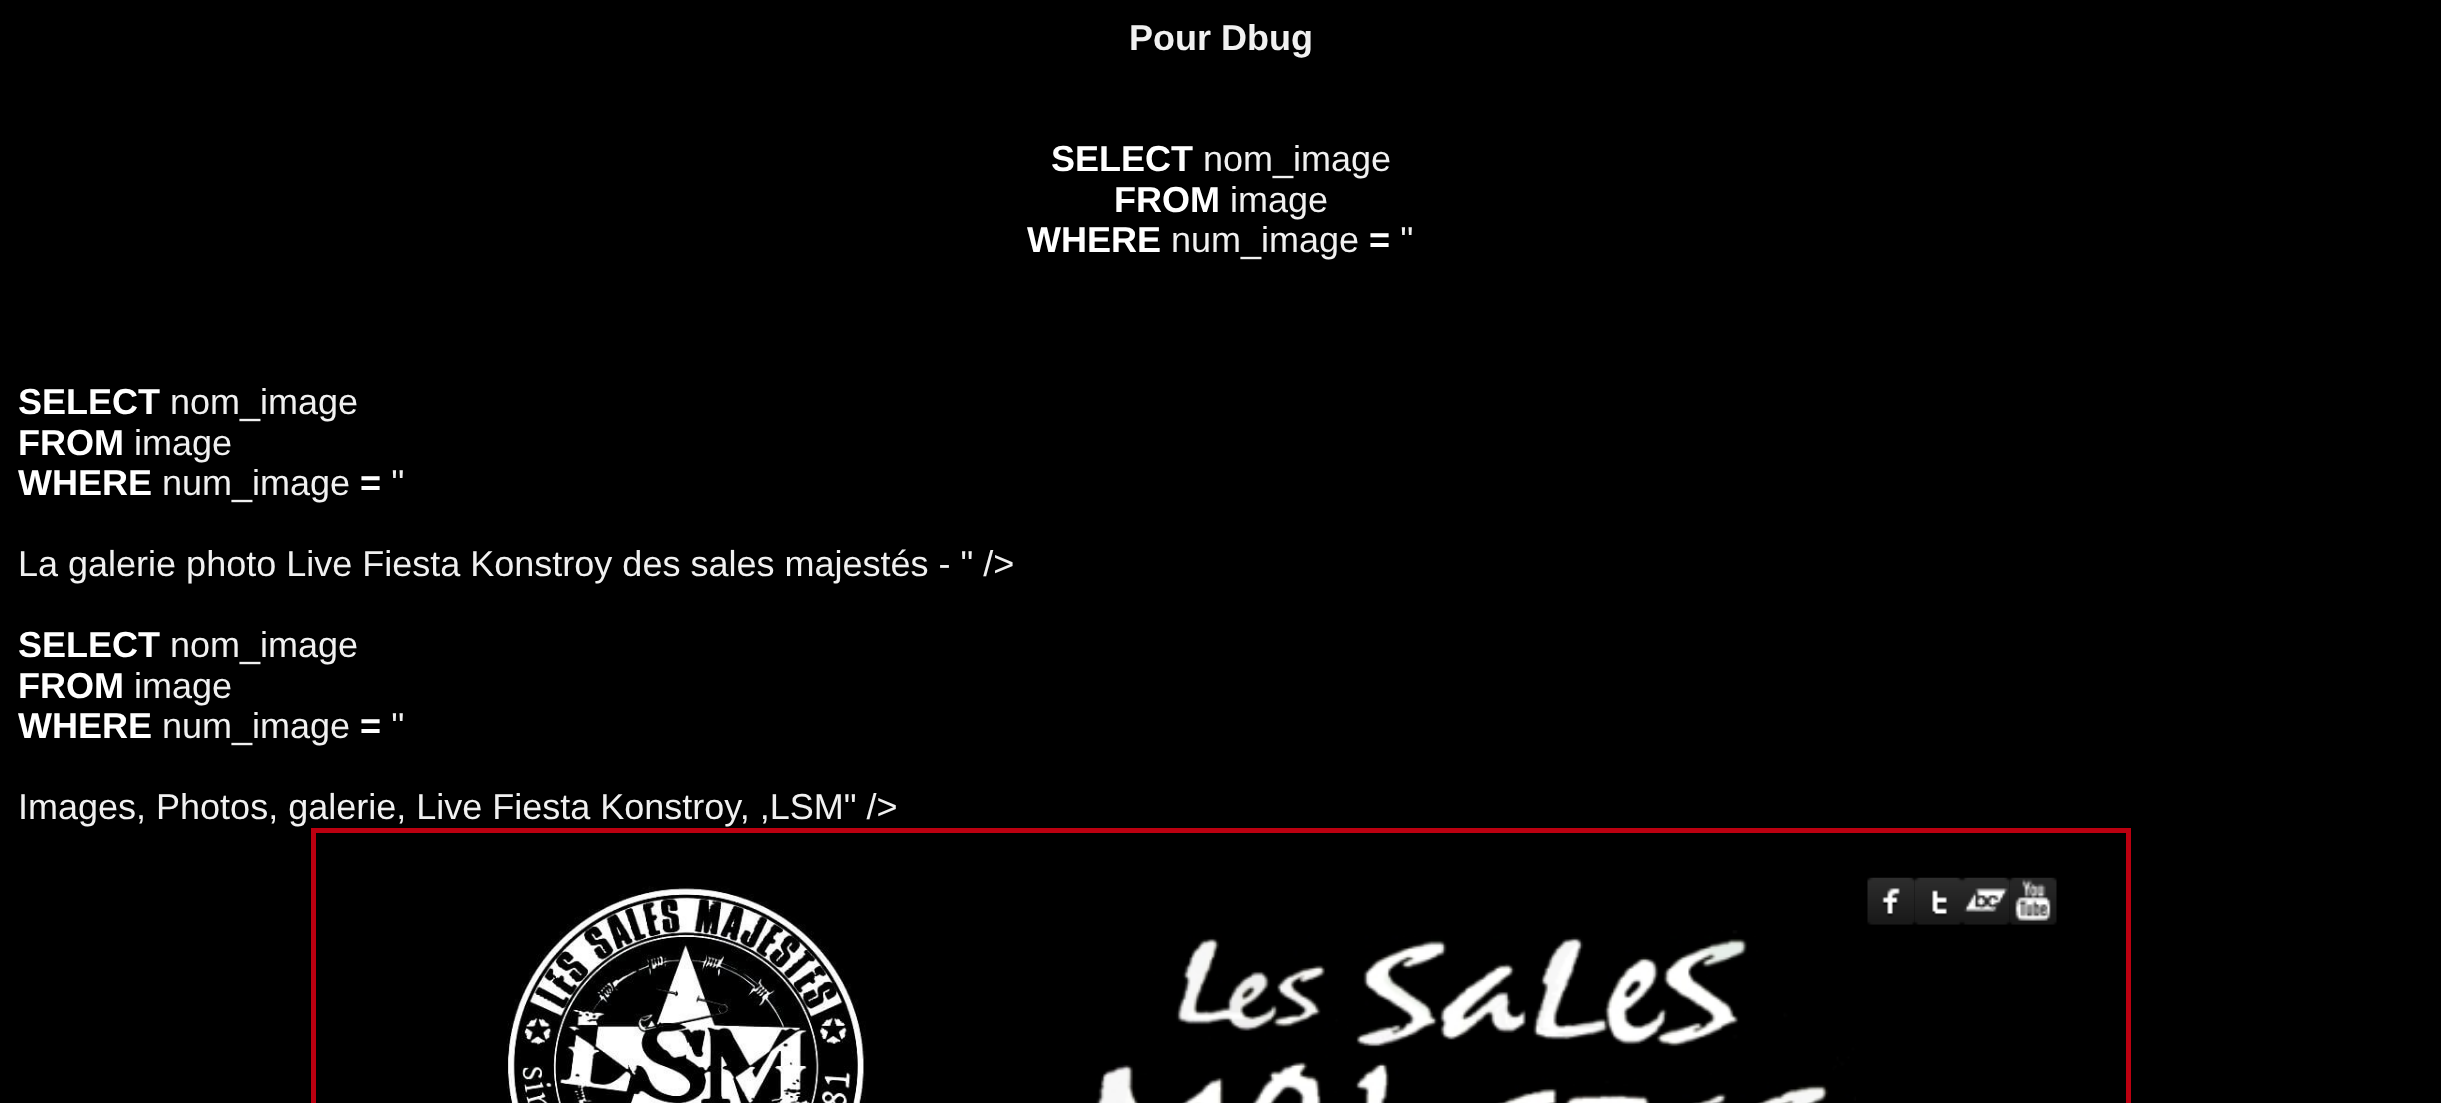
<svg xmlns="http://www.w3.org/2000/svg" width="2441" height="1103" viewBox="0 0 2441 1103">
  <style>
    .t1 { font: bold 36px Liberation Sans; fill: #f0f0f0; }
    .t2 { font: bold 36px Liberation Sans; fill: #fff; }
    .t3 { font: 36px Liberation Sans; fill: #f0f0f0; }
  </style>
  <rect width="100%" height="100%" fill="#000"/>
  <text x="1129" y="50" class="t1">Pour Dbug</text>
  <text x="1051" y="171" class="t2">SELECT</text>
  <text x="1203" y="171" class="t3">nom_image</text>
  <text x="1114" y="212" class="t2">FROM</text>
  <text x="1230" y="212" class="t3">image</text>
  <text x="1027" y="252" class="t2">WHERE</text>
  <text x="1171" y="252" class="t3">num_image</text>
  <text x="1400" y="252" class="t3">''</text>
  <text x="1369" y="252" class="t2">=</text>
  <text x="18" y="414" class="t2">SELECT</text>
  <text x="170" y="414" class="t3">nom_image</text>
  <text x="18" y="455" class="t2">FROM</text>
  <text x="134" y="455" class="t3">image</text>
  <text x="18" y="495" class="t2">WHERE</text>
  <text x="162" y="495" class="t3">num_image</text>
  <text x="391" y="495" class="t3">''</text>
  <text x="360" y="495" class="t2">=</text>
  <text x="18" y="576" class="t3">La galerie photo Live Fiesta Konstroy des sales majestés - " /&gt;</text>
  <text x="18" y="657" class="t2">SELECT</text>
  <text x="170" y="657" class="t3">nom_image</text>
  <text x="18" y="698" class="t2">FROM</text>
  <text x="134" y="698" class="t3">image</text>
  <text x="18" y="738" class="t2">WHERE</text>
  <text x="162" y="738" class="t3">num_image</text>
  <text x="391" y="738" class="t3">''</text>
  <text x="360" y="738" class="t2">=</text>
  <text x="18" y="819" class="t3">Images, Photos, galerie, Live Fiesta Konstroy, ,LSM" /&gt;</text>
  <rect x="313.5" y="830.5" width="1815" height="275" fill="none" stroke="#bb0010" stroke-width="5"/>
  <image x="507" y="886" width="359" height="217" href="images/1.png"/>
  <image x="1096" y="930" width="760" height="173" href="images/2.png"/>
  <image x="1867" y="877" width="48" height="48" href="images/3.png"/>
  <image x="1915" y="877" width="47" height="48" href="images/4.png"/>
  <image x="1962" y="877" width="48" height="48" href="images/5.png"/>
  <image x="2009" y="877" width="48" height="48" href="images/6.png"/>
</svg>
